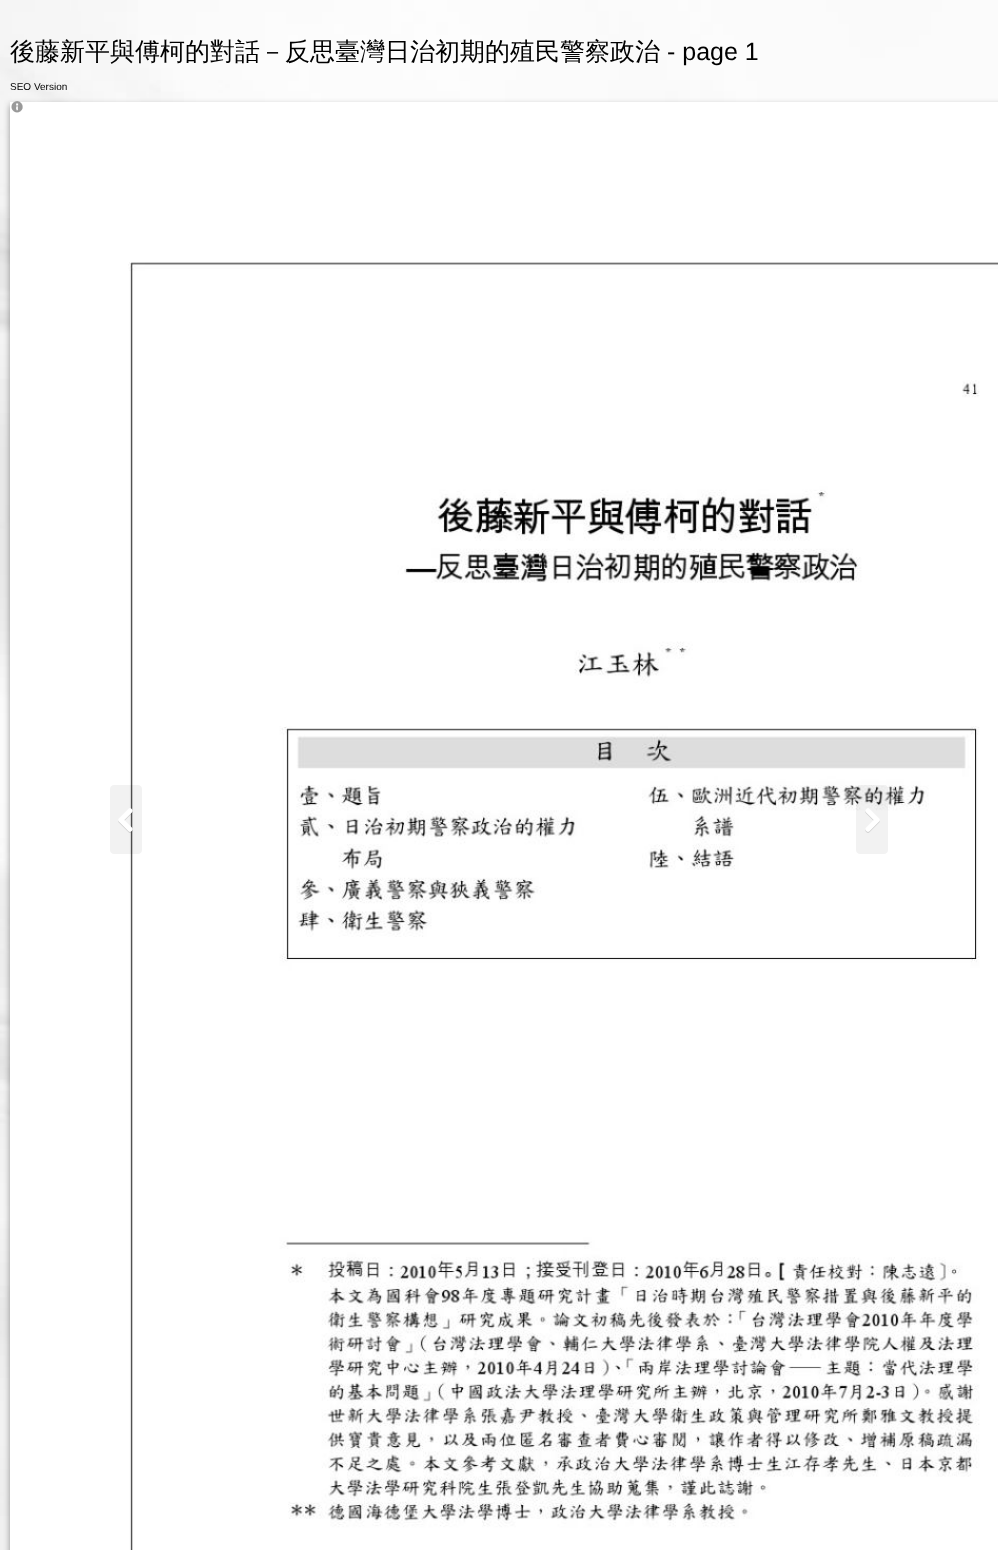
<svg xmlns="http://www.w3.org/2000/svg" width="998" height="1550" viewBox="0 0 998 1550">
  <style>
    .t1 { font: 500 25px WenQuanYi Zen Hei; fill: #000; }
    .t2 { font: 25px Liberation Sans; fill: #000; }
    .t3 { font: 10px Liberation Sans; fill: #000; }
  </style>
  <rect width="100%" height="100%" fill="#fff"/>
  <image x="0" y="0" width="998" height="1550" href="images/1.png"/>
  <text x="10" y="60" class="t1">後藤新平與傅柯的對話－反思臺灣日治初期的殖民警察政治</text>
  <text x="667" y="60" class="t2">- page 1</text>
  <rect x="10" y="105" width="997" height="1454" fill="#00000066" filter="blur(3px)"/>
  <rect x="10" y="102" width="988" height="1448" fill="#fff"/>
  <text x="10" y="90" class="t3">SEO Version</text>
  <image x="11" y="101" width="12" height="12" href="images/2.png"/>
  <image x="128" y="262" width="870" height="1288" href="images/3.png"/>
  <image x="110" y="785" width="32" height="69" href="images/4.png"/>
  <image x="856" y="785" width="32" height="69" href="images/5.png"/>
</svg>
